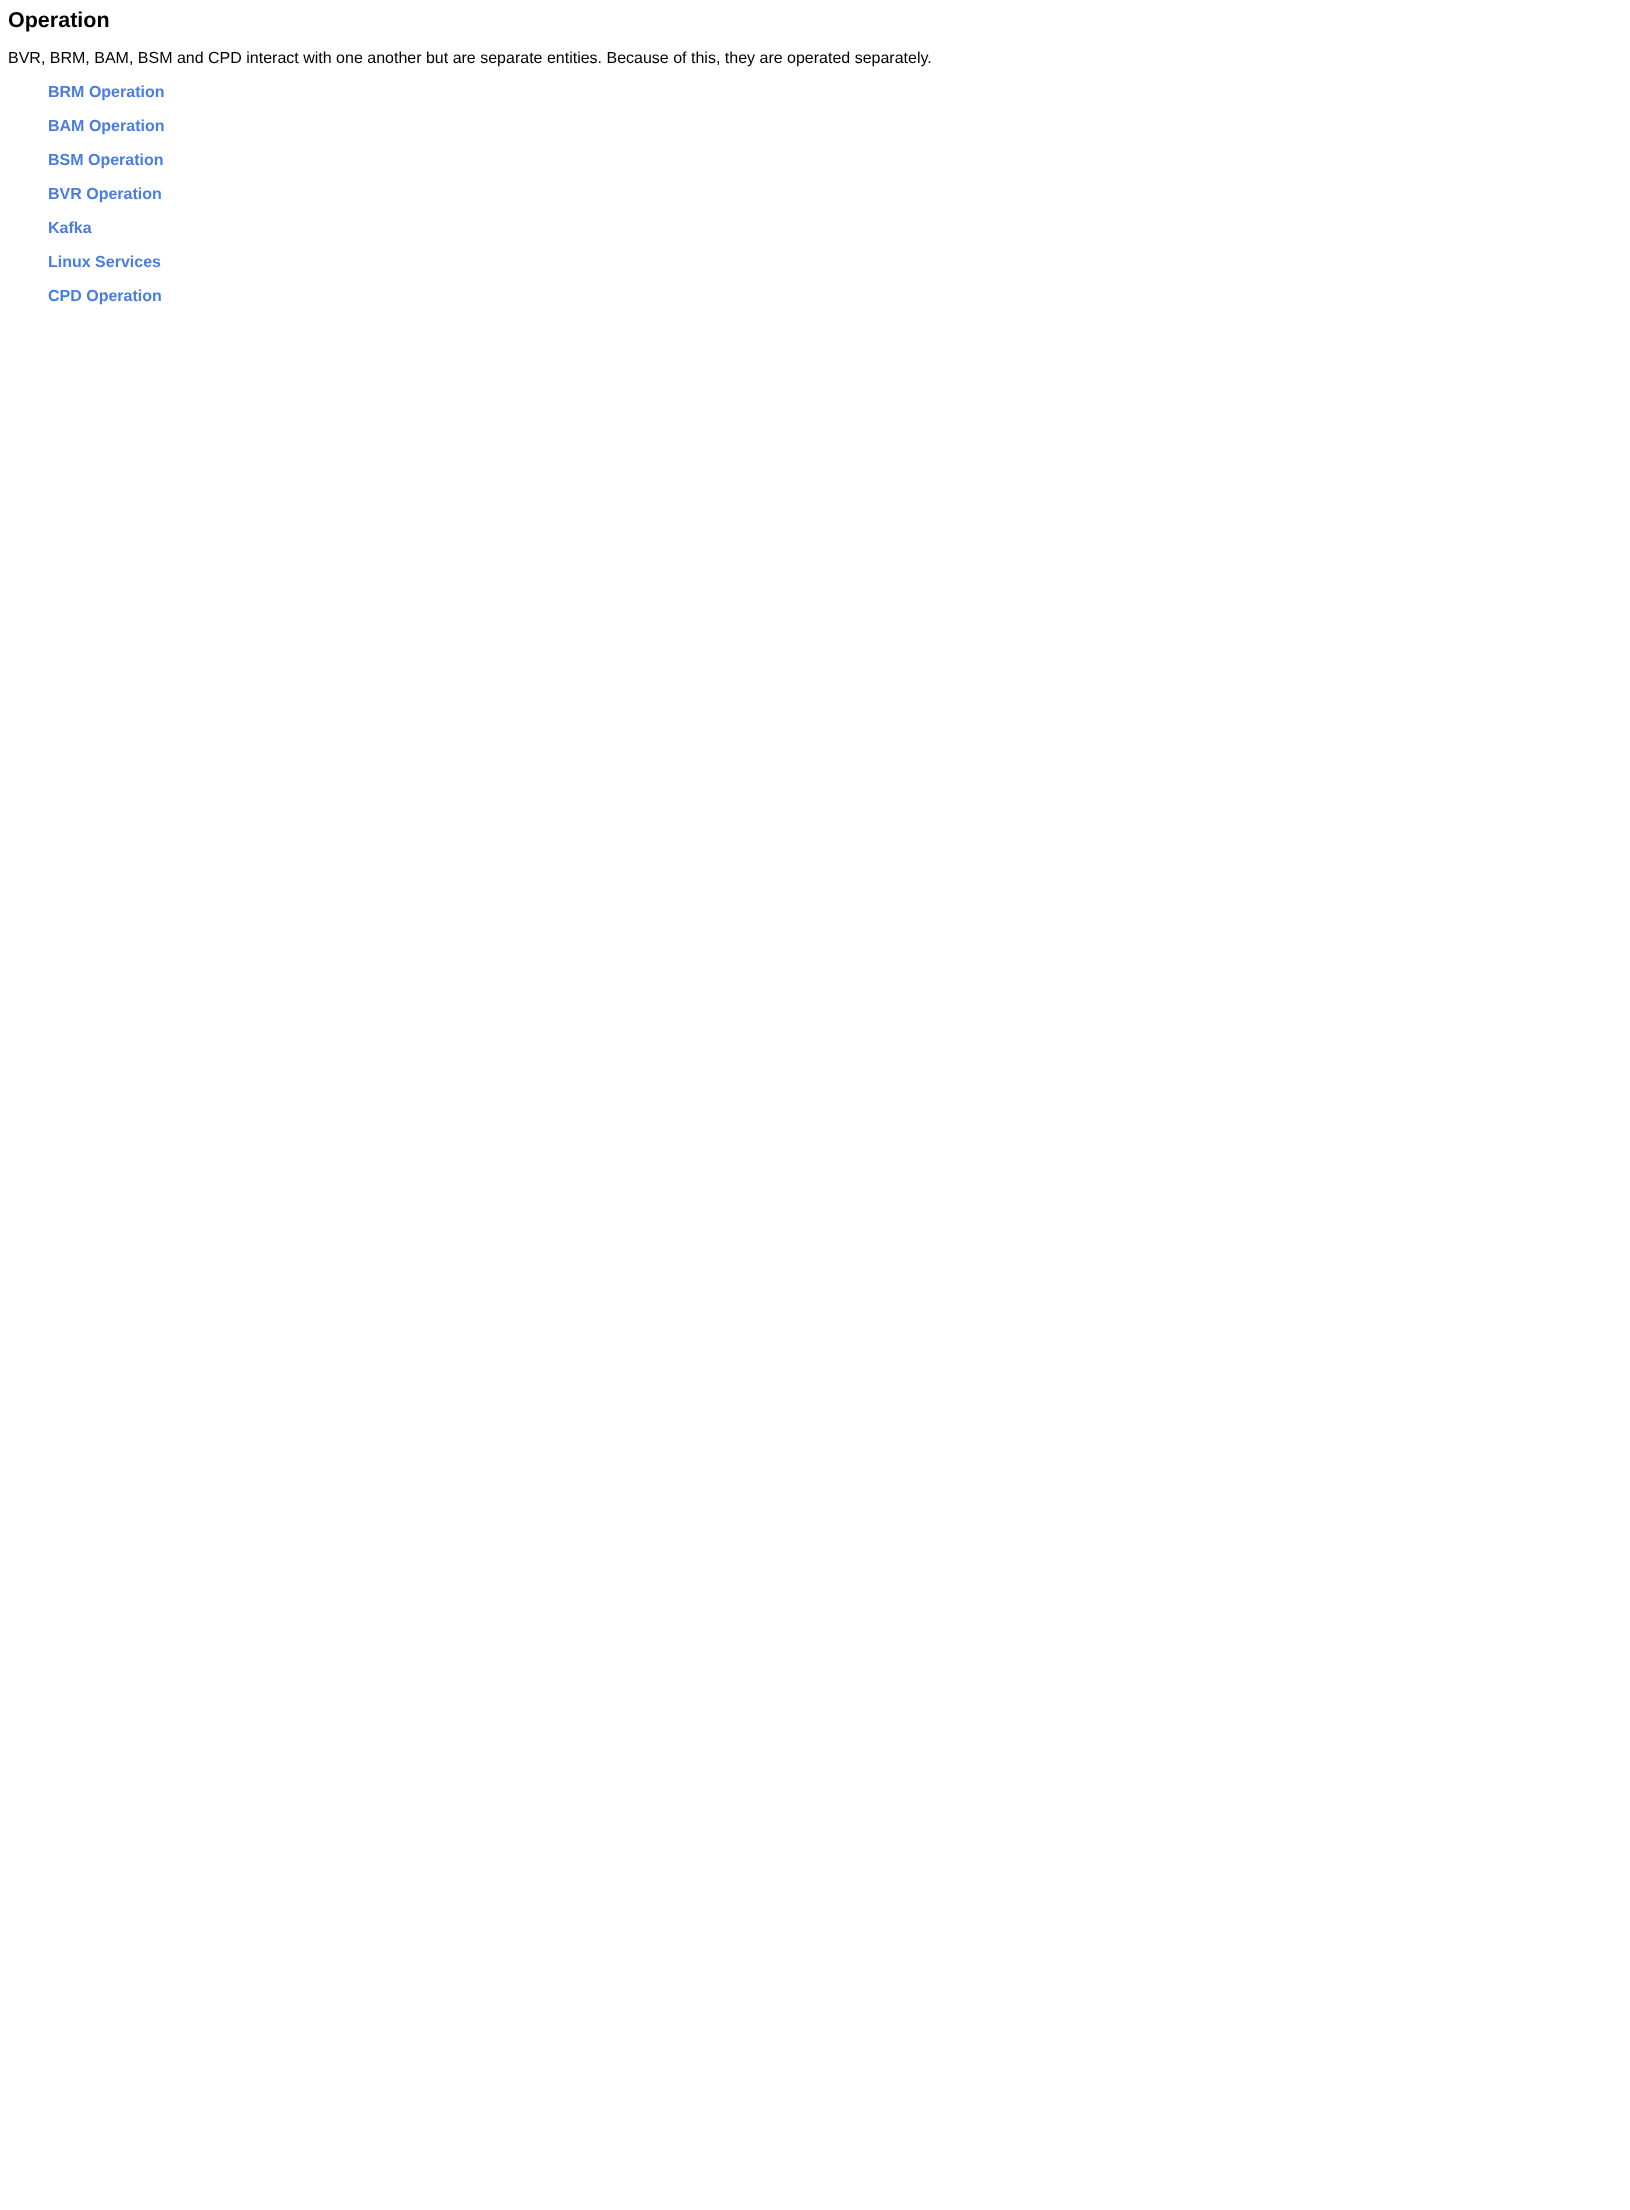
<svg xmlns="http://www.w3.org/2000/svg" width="1630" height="2210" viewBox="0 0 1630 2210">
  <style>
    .t1 { font: bold 21.5px Liberation Sans; fill: #000; }
    .t2 { font: 16px Liberation Sans; fill: #000; }
    .t3 { font: bold 16px Liberation Sans; fill: #4a7de1; }
  </style>
  <rect width="100%" height="100%" fill="#fff"/>
  <text x="8" y="27" class="t1">Operation</text>
  <text x="8" y="63" class="t2">BVR, BRM, BAM, BSM and CPD interact with one another but are separate entities. Because of this, they are operated separately.</text>
  <text x="48" y="97" class="t3">BRM Operation</text>
  <text x="48" y="131" class="t3">BAM Operation</text>
  <text x="48" y="165" class="t3">BSM Operation</text>
  <text x="48" y="199" class="t3">BVR Operation</text>
  <text x="48" y="233" class="t3">Kafka</text>
  <text x="48" y="267" class="t3">Linux Services</text>
  <text x="48" y="301" class="t3">CPD Operation</text>
</svg>
